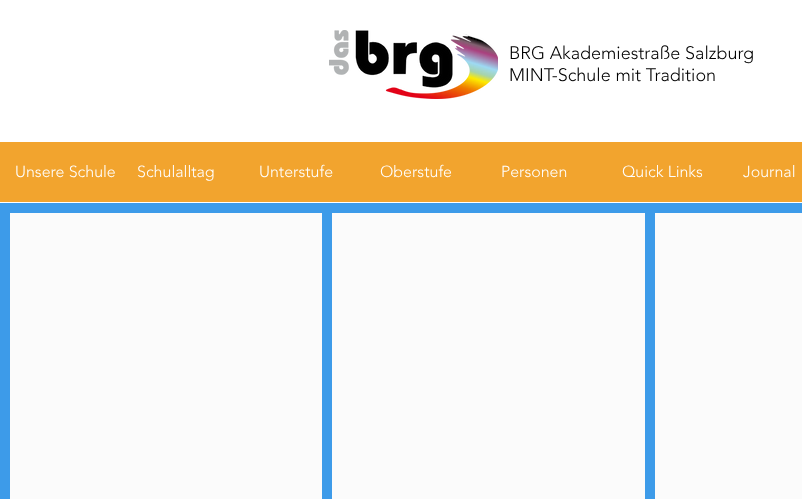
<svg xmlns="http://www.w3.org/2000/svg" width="802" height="499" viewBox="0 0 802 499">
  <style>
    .t1 { font: 300 18px 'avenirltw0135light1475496'; fill: #000; }
    .t2 { font: 300 16px 'avenirltw0135light1475496'; fill: #fff; }
  </style>
  <rect width="100%" height="100%" fill="#fff"/>
  <image x="329" y="30" width="169" height="69" href="images/1.png"/>
  <text x="509" y="59" class="t1">BRG Akademiestraße Salzburg</text>
  <text x="509" y="81" class="t1">MINT-Schule mit Tradition</text>
  <rect x="0" y="142" width="802" height="60" fill="#f2a42e"/>
  <text x="15" y="177" class="t2">Unsere Schule</text>
  <text x="137" y="177" class="t2">Schulalltag</text>
  <text x="259" y="177" class="t2">Unterstufe</text>
  <text x="380" y="177" class="t2">Oberstufe</text>
  <text x="501" y="177" class="t2">Personen</text>
  <text x="622" y="177" class="t2">Quick Links</text>
  <text x="743" y="177" class="t2">Journal</text>
  <rect x="0" y="203" width="802" height="296" fill="#3d9be9"/>
  <rect x="10" y="213" width="312" height="286" fill="#fbfbfb"/>
  <rect x="332" y="213" width="313" height="286" fill="#fbfbfb"/>
  <rect x="655" y="213" width="147" height="286" fill="#fbfbfb"/>
</svg>
